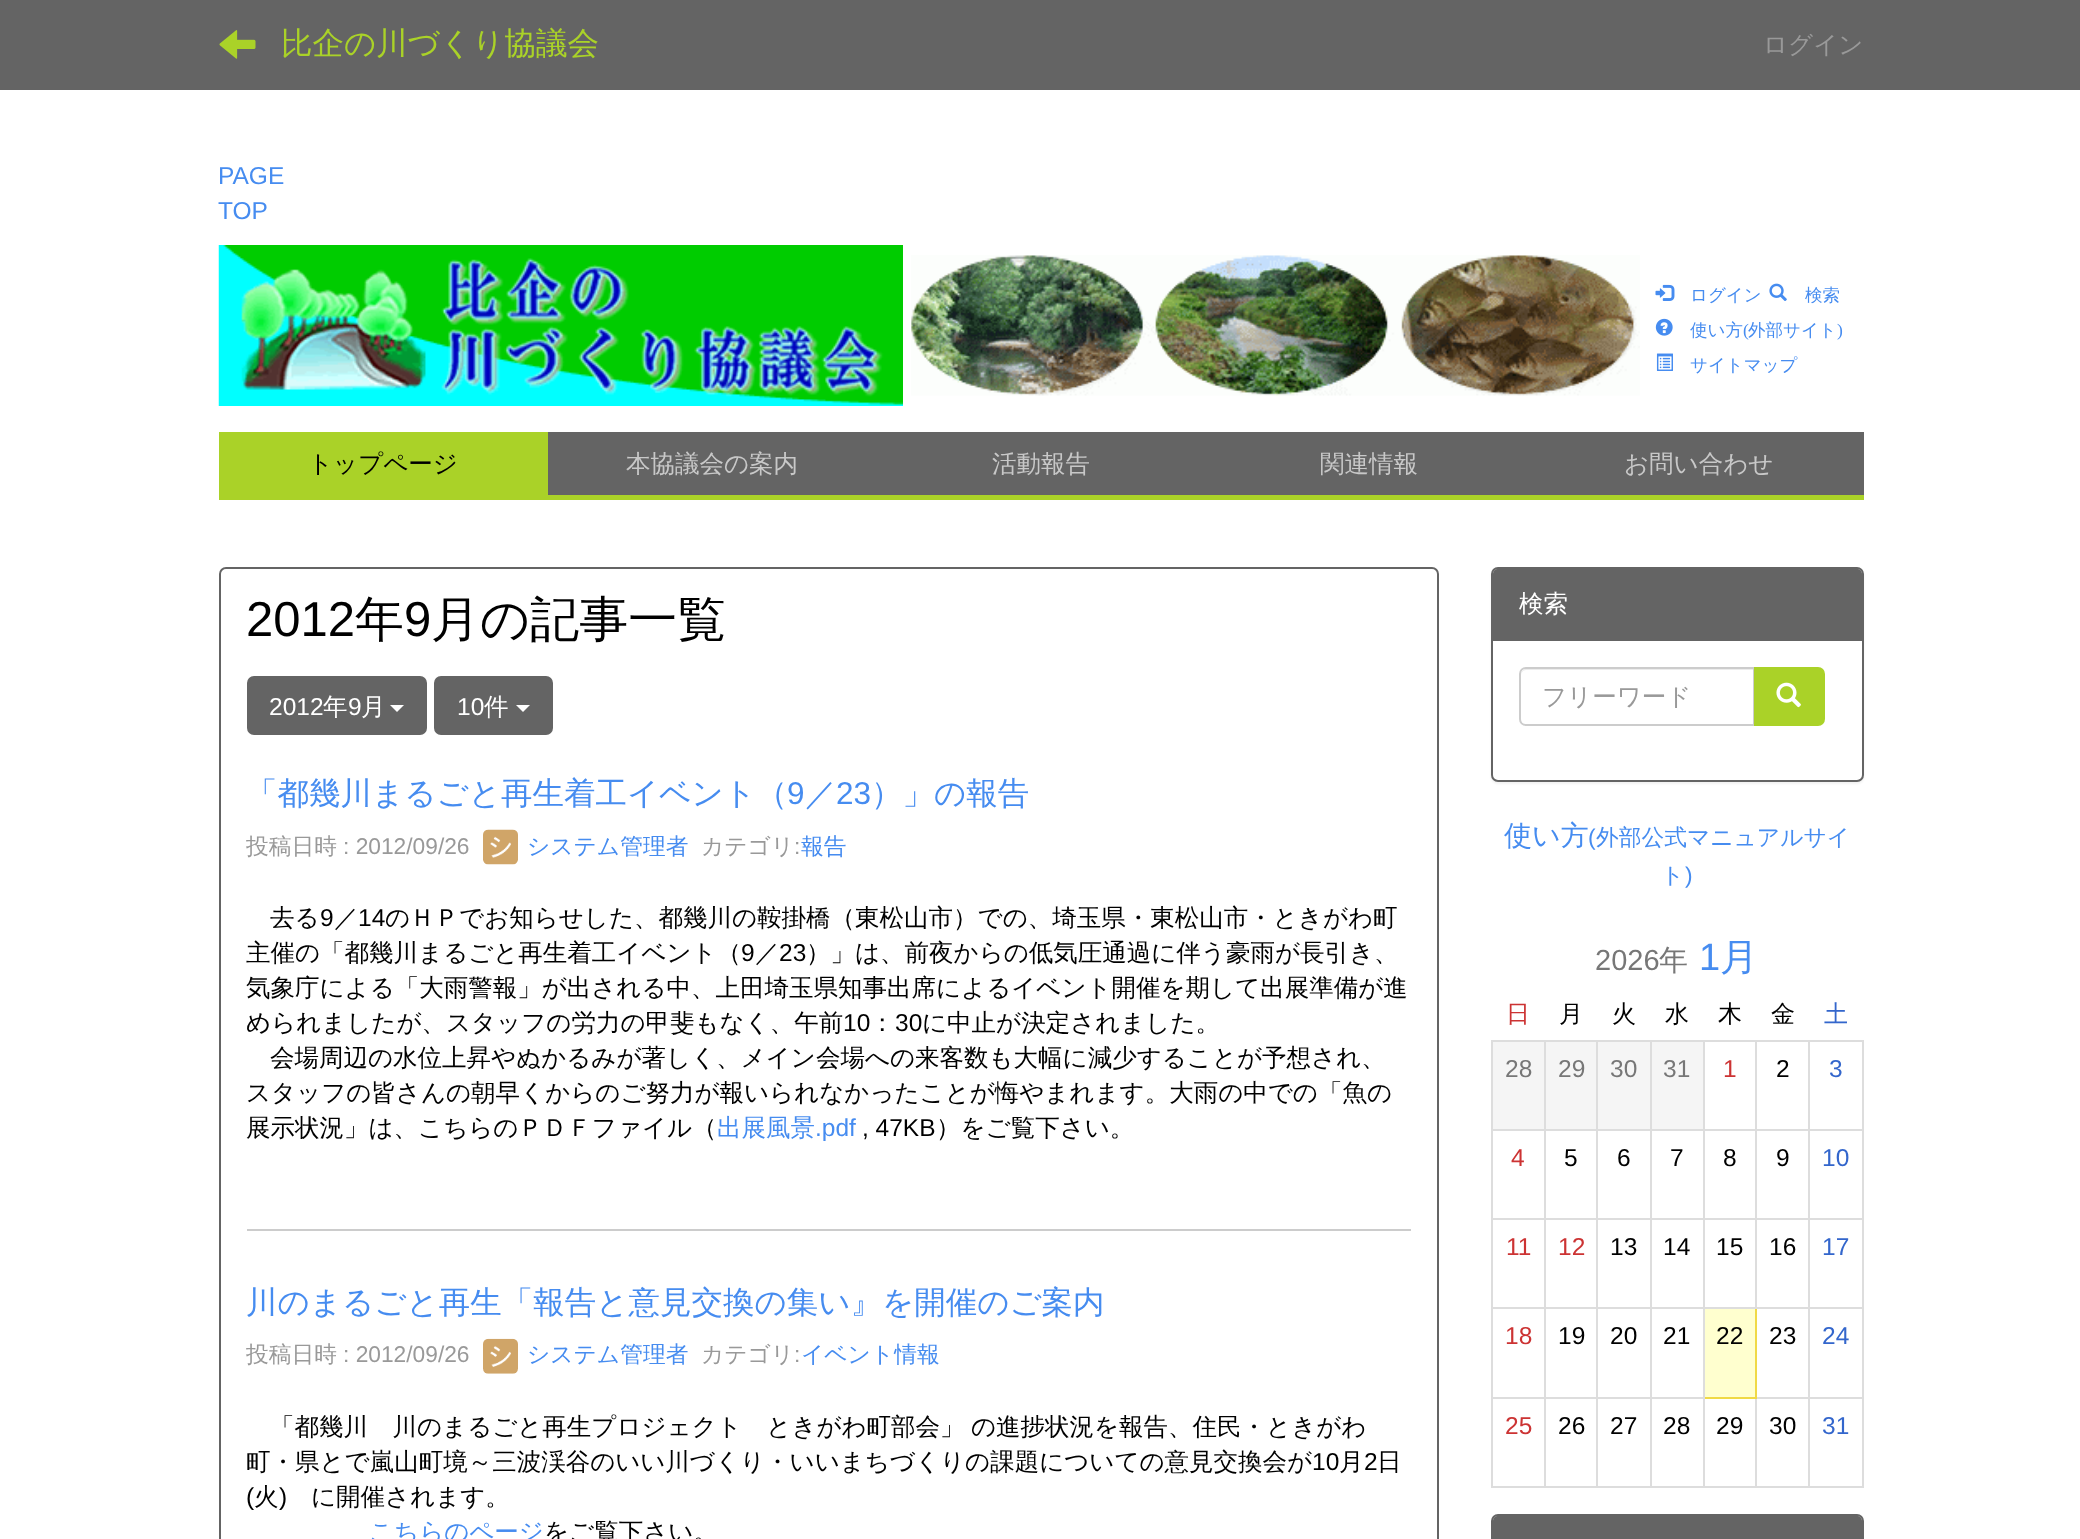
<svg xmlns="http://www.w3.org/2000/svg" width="2080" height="1539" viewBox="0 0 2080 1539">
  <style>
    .t1 { font: 500 31.5px WenQuanYi Zen Hei; fill: #aad228; }
    .t2 { font: 500 24.5px WenQuanYi Zen Hei; fill: #999; }
    .t3 { font: 24.5px Liberation Sans; fill: #468cf0; }
    .t4 { font: 500 17.5px WenQuanYi Zen Hei; fill: #468cf0; }
    .t5 { font: 17.5px Liberation Serif; fill: #468cf0; }
    .t6 { font: 500 24.5px WenQuanYi Zen Hei; fill: #000; }
    .t7 { font: 500 24.5px WenQuanYi Zen Hei; fill: #c8c8c8; }
    .t8 { font: 49px Liberation Sans; fill: #000; }
    .t9 { font: 500 49px WenQuanYi Zen Hei; fill: #000; }
    .t10 { font: 24.5px Liberation Sans; fill: #fff; }
    .t11 { font: 500 24.5px WenQuanYi Zen Hei; fill: #fff; }
    .t12 { font: 500 31.5px WenQuanYi Zen Hei; fill: #468cf0; }
    .t13 { font: 31.5px Liberation Sans; fill: #468cf0; }
    .t14 { font: 500 22.75px WenQuanYi Zen Hei; fill: #999; }
    .t15 { font: 22.75px Liberation Sans; fill: #999; }
    .t16 { font: 500 22.75px WenQuanYi Zen Hei; fill: #468cf0; }
    .t17 { font: 24.5px Liberation Sans; fill: #000; }
    .t18 { font: 500 24.5px WenQuanYi Zen Hei; fill: #468cf0; }
    .t19 { font: 500 28px WenQuanYi Zen Hei; fill: #468cf0; }
    .t20 { font: 22.75px Liberation Sans; fill: #468cf0; }
    .t21 { font: 29px Liberation Sans; fill: #777; }
    .t22 { font: 500 29px WenQuanYi Zen Hei; fill: #777; }
    .t23 { font: 38px Liberation Sans; fill: #468cf0; }
    .t24 { font: 500 38px WenQuanYi Zen Hei; fill: #468cf0; }
    .t25 { font: 500 24px WenQuanYi Zen Hei; fill: #c33; }
    .t26 { font: 500 24px WenQuanYi Zen Hei; fill: #000; }
    .t27 { font: 500 24px WenQuanYi Zen Hei; fill: #36c; }
    .t28 { font: 24.5px Liberation Sans; fill: #777; }
    .t29 { font: 24.5px Liberation Sans; fill: #c33; }
    .t30 { font: 24.5px Liberation Sans; fill: #36c; }
  </style>
  <rect width="100%" height="100%" fill="#fff"/>
  <rect x="0" y="0" width="2080" height="90" fill="#646464"/>
  <image x="219" y="30" width="37" height="29" href="images/1.png"/>
  <text x="281" y="54" class="t1">比企の川づくり協議会</text>
  <text x="1763" y="53" class="t2">ログイン</text>
  <text x="218" y="184" class="t3">PAGE</text>
  <text x="218" y="219" class="t3">TOP</text>
  <image x="218" y="245" width="685" height="161" href="images/2.png"/>
  <image x="911" y="255" width="729" height="141" href="images/3.png"/>
  <image x="1655" y="284" width="20" height="17" href="images/4.png"/>
  <text x="1690" y="301" class="t4">ログイン</text>
  <image x="1769" y="283" width="18" height="18" href="images/5.png"/>
  <text x="1805" y="301" class="t4">検索</text>
  <image x="1655" y="318" width="18" height="18" href="images/6.png"/>
  <text x="1690" y="336" class="t4">使い方</text>
  <text x="1743" y="336" class="t5">(</text>
  <text x="1748" y="336" class="t4">外部サイト</text>
  <text x="1837" y="336" class="t5">)</text>
  <image x="1656" y="353" width="17" height="18" href="images/7.png"/>
  <text x="1690" y="371" class="t4">サイトマップ</text>
  <rect x="219" y="495" width="1645" height="5" fill="#aad228"/>
  <rect x="219" y="432" width="329" height="63" fill="#aad228"/>
  <text x="308" y="472" class="t6">トップページ</text>
  <rect x="548" y="432" width="1316" height="63" fill="#646464"/>
  <text x="626" y="472" class="t7">本協議会の案内</text>
  <text x="992" y="472" class="t7">活動報告</text>
  <text x="1320" y="472" class="t7">関連情報</text>
  <text x="1624" y="472" class="t7">お問い合わせ</text>
  <rect x="220" y="568" width="1218" height="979" rx="6" fill="none" stroke="#646464" stroke-width="2"/>
  <text x="246" y="636" class="t8">2012</text>
  <text x="355" y="636" class="t9">年</text>
  <text x="404" y="636" class="t8">9</text>
  <text x="431" y="636" class="t9">月の記事一覧</text>
  <rect x="248" y="677" width="178" height="57" rx="6" fill="#646464" stroke="#646464" stroke-width="2"/>
  <text x="269" y="715" class="t10">2012</text>
  <text x="323" y="715" class="t11">年</text>
  <text x="348" y="715" class="t10">9</text>
  <text x="361" y="715" class="t11">月</text>
  <path d="M390 705H404L397 712Z" fill="#fff"/>
  <rect x="435" y="677" width="117" height="57" rx="6" fill="#646464" stroke="#646464" stroke-width="2"/>
  <text x="457" y="715" class="t10">10</text>
  <text x="484" y="715" class="t11">件</text>
  <path d="M516 705H530L523 712Z" fill="#fff"/>
  <rect x="247" y="1229" width="1164" height="2" fill="#ccc"/>
  <text x="246" y="804" class="t12">「都幾川まるごと再生着工イベント（</text>
  <text x="787" y="804" class="t13">9</text>
  <text x="805" y="804" class="t12">／</text>
  <text x="836" y="804" class="t13">23</text>
  <text x="871" y="804" class="t12">）」の報告</text>
  <text x="246" y="854" class="t14">投稿日時</text>
  <text x="343" y="854" class="t15">: 2012/09/26</text>
  <image x="483" y="829" width="35" height="36" href="images/8.png"/>
  <text x="527" y="854" class="t16">システム管理者</text>
  <text x="701" y="854" class="t14">カテゴリ</text>
  <text x="794" y="854" class="t15">:</text>
  <text x="801" y="854" class="t16">報告</text>
  <text x="270" y="926" class="t6">去る</text>
  <text x="320" y="926" class="t17">9</text>
  <text x="334" y="926" class="t6">／</text>
  <text x="358" y="926" class="t17">14</text>
  <text x="385" y="926" class="t6">のＨＰでお知らせした、都幾川の鞍掛橋（東松山市）での、埼玉県・東松山市・ときがわ町</text>
  <text x="246" y="961" class="t6">主催の「都幾川まるごと再生着工イベント（</text>
  <text x="741" y="961" class="t17">9</text>
  <text x="755" y="961" class="t6">／</text>
  <text x="779" y="961" class="t17">23</text>
  <text x="806" y="961" class="t6">）」は、前夜からの低気圧通過に伴う豪雨が長引き、</text>
  <text x="246" y="996" class="t6">気象庁による「大雨警報」が出される中、上田埼玉県知事出席によるイベント開催を期して出展準備が進</text>
  <text x="246" y="1031" class="t6">められましたが、スタッフの労力の甲斐もなく、午前</text>
  <text x="843" y="1031" class="t17">10</text>
  <text x="870" y="1031" class="t6">：</text>
  <text x="895" y="1031" class="t17">30</text>
  <text x="922" y="1031" class="t6">に中止が決定されました。</text>
  <text x="270" y="1066" class="t6">会場周辺の水位上昇やぬかるみが著しく、メイン会場への来客数も大幅に減少することが予想され、</text>
  <text x="246" y="1101" class="t6">スタッフの皆さんの朝早くからのご努力が報いられなかったことが悔やまれます。大雨の中での「魚の</text>
  <text x="246" y="1136" class="t6">展示状況」は、こちらのＰＤＦファイル（</text>
  <text x="717" y="1136" class="t18">出展風景</text>
  <text x="815" y="1136" class="t3">.pdf</text>
  <text x="862" y="1136" class="t17">, 47KB</text>
  <text x="936" y="1136" class="t6">）をご覧下さい。</text>
  <text x="246" y="1313" class="t12">川のまるごと再生「報告と意見交換の集い』を開催のご案内</text>
  <text x="246" y="1362" class="t14">投稿日時</text>
  <text x="343" y="1362" class="t15">: 2012/09/26</text>
  <image x="483" y="1338" width="35" height="36" href="images/9.png"/>
  <text x="527" y="1362" class="t16">システム管理者</text>
  <text x="701" y="1362" class="t14">カテゴリ</text>
  <text x="794" y="1362" class="t15">:</text>
  <text x="801" y="1362" class="t16">イベント情報</text>
  <text x="270" y="1435" word-spacing="-1" class="t6">「都幾川　川のまるごと再生プロジェクト　ときがわ町部会」 の進捗状況を報告、住民・ときがわ</text>
  <text x="246" y="1470" class="t6">町・県とで嵐山町境～三波渓谷のいい川づくり・いいまちづくりの課題についての意見交換会が</text>
  <text x="1312" y="1470" class="t17">10</text>
  <text x="1339" y="1470" class="t6">月</text>
  <text x="1364" y="1470" class="t17">2</text>
  <text x="1377" y="1470" class="t6">日</text>
  <text x="246" y="1505" class="t17">(</text>
  <text x="254" y="1505" class="t6">火</text>
  <text x="279" y="1505" class="t17">)</text>
  <text x="311" y="1505" class="t6">に開催されます。</text>
  <text x="369" y="1540" class="t18">こちらのページ</text>
  <text x="544" y="1540" class="t6">をご覧下さい。</text>
  <rect x="1491" y="569" width="373" height="215" rx="7" fill="#0000000d" filter="blur(1px)"/>
  <rect x="1492" y="568" width="371" height="213" rx="6" fill="#fff" stroke="#646464" stroke-width="2"/>
  <path d="M1498 569H1857C1860 569 1862 571 1862 574V641H1493V574C1493 571 1495 569 1498 569Z" fill="#646464"/>
  <text x="1519" y="612" class="t11">検索</text>
  <path d="M1526 670H1754V669H1526C1522 669 1521 673 1521 676C1521 673 1523 670 1526 670Z" fill="#ececec"/>
  <path d="M1526 668H1754V725H1526C1522.5 725 1520 722.5 1520 719V674C1520 670.5 1522.5 668 1526 668Z" fill="none" stroke="#ccc" stroke-width="2"/>
  <text x="1542" y="705" class="t2">フリーワード</text>
  <path d="M1755 668H1818C1821.5 668 1824 670.5 1824 674V719C1824 722.5 1821.5 725 1818 725H1755Z" fill="#aad228" stroke="#aad228" stroke-width="2"/>
  <image x="1776" y="682" width="25" height="26" href="images/10.png"/>
  <text x="1504" y="845" class="t19">使い方</text>
  <text x="1588" y="845" class="t20">(</text>
  <text x="1596" y="845" class="t16">外部公式マニュアルサイ</text>
  <text x="1661" y="883" class="t16">ト</text>
  <text x="1685" y="883" class="t20">)</text>
  <text x="1595" y="970" class="t21">2026</text>
  <text x="1659" y="970" class="t22">年</text>
  <text x="1699" y="970" class="t23">1</text>
  <text x="1720" y="970" class="t24">月</text>
  <text x="1506" y="1022" class="t25">日</text>
  <text x="1559" y="1022" class="t26">月</text>
  <text x="1612" y="1022" class="t26">火</text>
  <text x="1665" y="1022" class="t26">水</text>
  <text x="1718" y="1022" class="t26">木</text>
  <text x="1771" y="1022" class="t26">金</text>
  <text x="1824" y="1022" class="t27">土</text>
  <rect x="1493" y="1042" width="51" height="87" fill="#f5f5f5"/>
  <rect x="1808" y="1040" width="56" height="2" fill="#ddd"/>
  <rect x="1808" y="1129" width="56" height="2" fill="#ddd"/>
  <rect x="1808" y="1218" width="56" height="2" fill="#ddd"/>
  <rect x="1808" y="1307" width="56" height="2" fill="#ddd"/>
  <rect x="1808" y="1397" width="56" height="2" fill="#ddd"/>
  <rect x="1862" y="1397" width="2" height="91" fill="#ddd"/>
  <rect x="1808" y="1486" width="56" height="2" fill="#ddd"/>
  <rect x="1808" y="1397" width="2" height="91" fill="#ddd"/>
  <rect x="1755" y="1397" width="55" height="2" fill="#ddd"/>
  <rect x="1808" y="1307" width="2" height="91" fill="#ddd"/>
  <rect x="1808" y="1218" width="2" height="91" fill="#ddd"/>
  <rect x="1755" y="1218" width="55" height="2" fill="#ddd"/>
  <rect x="1808" y="1129" width="2" height="91" fill="#ddd"/>
  <rect x="1755" y="1129" width="55" height="2" fill="#ddd"/>
  <rect x="1808" y="1040" width="2" height="91" fill="#ddd"/>
  <rect x="1755" y="1040" width="55" height="2" fill="#ddd"/>
  <rect x="1755" y="1486" width="55" height="2" fill="#ddd"/>
  <rect x="1755" y="1397" width="2" height="91" fill="#ddd"/>
  <rect x="1755" y="1307" width="2" height="91" fill="#f0d946"/>
  <rect x="1755" y="1307" width="55" height="2" fill="#ddd"/>
  <rect x="1755" y="1218" width="2" height="91" fill="#ddd"/>
  <rect x="1703" y="1218" width="54" height="2" fill="#ddd"/>
  <rect x="1755" y="1129" width="2" height="91" fill="#ddd"/>
  <rect x="1703" y="1129" width="54" height="2" fill="#ddd"/>
  <rect x="1755" y="1040" width="2" height="91" fill="#ddd"/>
  <rect x="1703" y="1040" width="54" height="2" fill="#ddd"/>
  <rect x="1650" y="1307" width="55" height="2" fill="#ddd"/>
  <rect x="1703" y="1486" width="54" height="2" fill="#ddd"/>
  <rect x="1703" y="1397" width="2" height="91" fill="#ddd"/>
  <rect x="1703" y="1397" width="54" height="2" fill="#f0d946"/>
  <rect x="1703" y="1307" width="2" height="91" fill="#ddd"/>
  <rect x="1703" y="1307" width="54" height="2" fill="#ddd"/>
  <rect x="1703" y="1218" width="2" height="91" fill="#ddd"/>
  <rect x="1650" y="1218" width="55" height="2" fill="#ddd"/>
  <rect x="1703" y="1129" width="2" height="91" fill="#ddd"/>
  <rect x="1650" y="1129" width="55" height="2" fill="#ddd"/>
  <rect x="1703" y="1040" width="2" height="91" fill="#ddd"/>
  <rect x="1650" y="1040" width="55" height="2" fill="#ddd"/>
  <rect x="1650" y="1486" width="55" height="2" fill="#ddd"/>
  <rect x="1650" y="1397" width="2" height="91" fill="#ddd"/>
  <rect x="1596" y="1397" width="56" height="2" fill="#ddd"/>
  <rect x="1650" y="1397" width="55" height="2" fill="#ddd"/>
  <rect x="1650" y="1307" width="2" height="91" fill="#ddd"/>
  <rect x="1596" y="1307" width="56" height="2" fill="#ddd"/>
  <rect x="1650" y="1218" width="2" height="91" fill="#ddd"/>
  <rect x="1596" y="1218" width="56" height="2" fill="#ddd"/>
  <rect x="1650" y="1129" width="2" height="91" fill="#ddd"/>
  <rect x="1596" y="1129" width="56" height="2" fill="#ddd"/>
  <rect x="1650" y="1040" width="2" height="91" fill="#ddd"/>
  <rect x="1596" y="1040" width="56" height="2" fill="#ddd"/>
  <rect x="1596" y="1486" width="56" height="2" fill="#ddd"/>
  <rect x="1596" y="1397" width="2" height="91" fill="#ddd"/>
  <rect x="1544" y="1397" width="54" height="2" fill="#ddd"/>
  <rect x="1596" y="1307" width="2" height="91" fill="#ddd"/>
  <rect x="1544" y="1307" width="54" height="2" fill="#ddd"/>
  <rect x="1596" y="1218" width="2" height="91" fill="#ddd"/>
  <rect x="1544" y="1218" width="54" height="2" fill="#ddd"/>
  <rect x="1596" y="1129" width="2" height="91" fill="#ddd"/>
  <rect x="1544" y="1129" width="54" height="2" fill="#ddd"/>
  <rect x="1596" y="1040" width="2" height="91" fill="#ddd"/>
  <rect x="1544" y="1040" width="54" height="2" fill="#ddd"/>
  <rect x="1544" y="1486" width="54" height="2" fill="#ddd"/>
  <rect x="1544" y="1397" width="2" height="91" fill="#ddd"/>
  <rect x="1491" y="1397" width="54" height="2" fill="#ddd"/>
  <rect x="1544" y="1307" width="2" height="91" fill="#ddd"/>
  <rect x="1491" y="1307" width="54" height="2" fill="#ddd"/>
  <rect x="1544" y="1218" width="2" height="91" fill="#ddd"/>
  <rect x="1491" y="1218" width="54" height="2" fill="#ddd"/>
  <rect x="1544" y="1129" width="2" height="91" fill="#ddd"/>
  <rect x="1491" y="1129" width="54" height="2" fill="#ddd"/>
  <rect x="1544" y="1040" width="2" height="91" fill="#ddd"/>
  <rect x="1491" y="1040" width="54" height="2" fill="#ddd"/>
  <rect x="1491" y="1486" width="54" height="2" fill="#ddd"/>
  <rect x="1491" y="1397" width="2" height="91" fill="#ddd"/>
  <rect x="1491" y="1307" width="2" height="91" fill="#ddd"/>
  <rect x="1491" y="1218" width="2" height="91" fill="#ddd"/>
  <rect x="1491" y="1129" width="2" height="91" fill="#ddd"/>
  <rect x="1491" y="1040" width="2" height="91" fill="#ddd"/>
  <text x="1505" y="1077" class="t28">28</text>
  <rect x="1546" y="1042" width="50" height="87" fill="#f5f5f5"/>
  <text x="1558" y="1077" class="t28">29</text>
  <rect x="1598" y="1042" width="52" height="87" fill="#f5f5f5"/>
  <text x="1610" y="1077" class="t28">30</text>
  <rect x="1652" y="1042" width="51" height="87" fill="#f5f5f5"/>
  <text x="1663" y="1077" class="t28">31</text>
  <text x="1723" y="1077" class="t29">1</text>
  <text x="1776" y="1077" class="t17">2</text>
  <rect x="1862" y="1307" width="2" height="91" fill="#ddd"/>
  <rect x="1862" y="1218" width="2" height="91" fill="#ddd"/>
  <rect x="1862" y="1129" width="2" height="91" fill="#ddd"/>
  <rect x="1862" y="1040" width="2" height="91" fill="#ddd"/>
  <text x="1829" y="1077" class="t30">3</text>
  <text x="1511" y="1166" class="t29">4</text>
  <text x="1564" y="1166" class="t17">5</text>
  <text x="1617" y="1166" class="t17">6</text>
  <text x="1670" y="1166" class="t17">7</text>
  <text x="1723" y="1166" class="t17">8</text>
  <text x="1776" y="1166" class="t17">9</text>
  <text x="1822" y="1166" class="t30">10</text>
  <text x="1506" y="1255" class="t29">11</text>
  <text x="1558" y="1255" class="t29">12</text>
  <text x="1610" y="1255" class="t17">13</text>
  <text x="1663" y="1255" class="t17">14</text>
  <text x="1716" y="1255" class="t17">15</text>
  <text x="1769" y="1255" class="t17">16</text>
  <text x="1822" y="1255" class="t30">17</text>
  <text x="1505" y="1344" class="t29">18</text>
  <text x="1558" y="1344" class="t17">19</text>
  <text x="1610" y="1344" class="t17">20</text>
  <text x="1663" y="1344" class="t17">21</text>
  <rect x="1705" y="1309" width="50" height="88" fill="#ffffcf"/>
  <text x="1716" y="1344" class="t17">22</text>
  <text x="1769" y="1344" class="t17">23</text>
  <text x="1822" y="1344" class="t30">24</text>
  <text x="1505" y="1434" class="t29">25</text>
  <text x="1558" y="1434" class="t17">26</text>
  <text x="1610" y="1434" class="t17">27</text>
  <text x="1663" y="1434" class="t17">28</text>
  <text x="1716" y="1434" class="t17">29</text>
  <text x="1769" y="1434" class="t17">30</text>
  <text x="1822" y="1434" class="t30">31</text>
  <rect x="1492" y="1515" width="371" height="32" rx="6" fill="none" stroke="#646464" stroke-width="2"/>
  <path d="M1498 1516H1857C1860 1516 1862 1518 1862 1521V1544H1493V1521C1493 1518 1495 1516 1498 1516Z" fill="#646464"/>
</svg>
